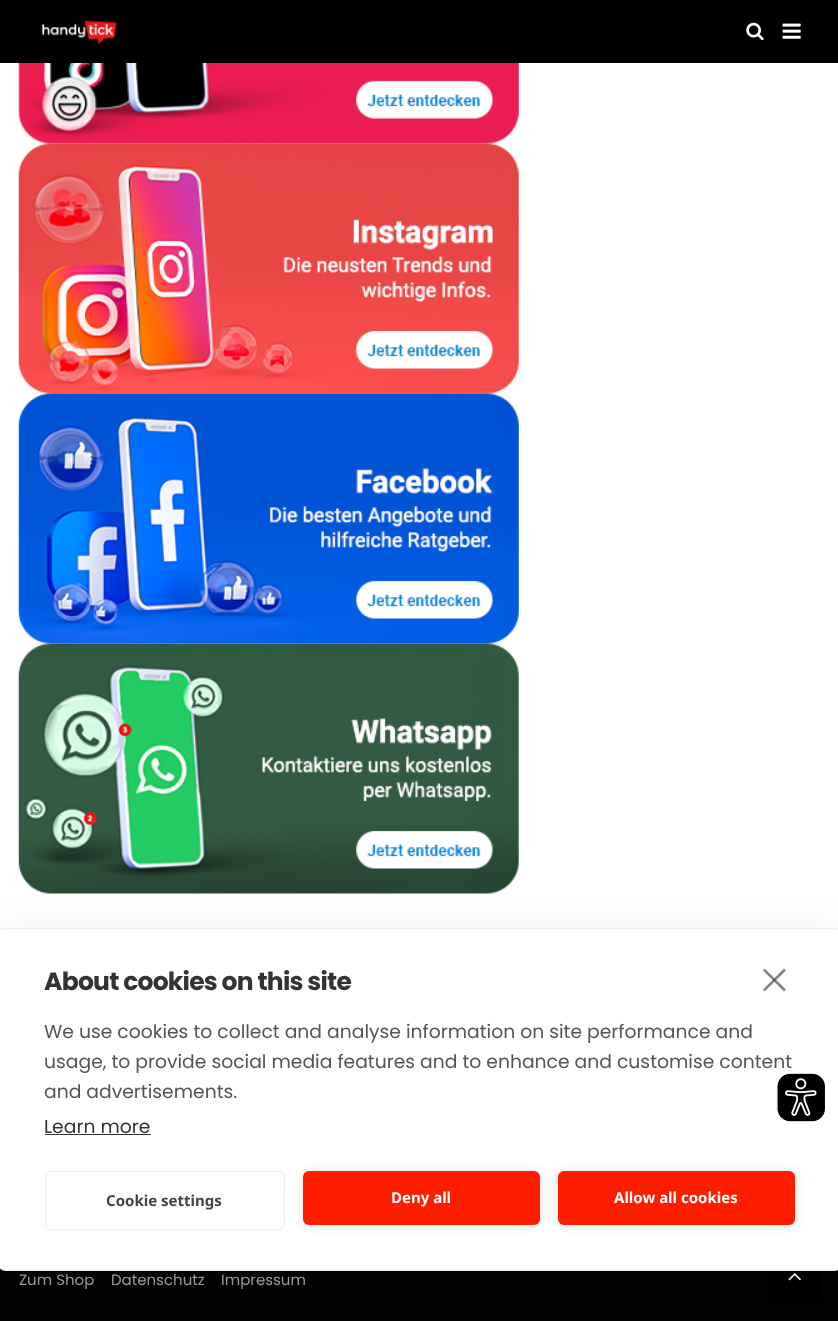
<svg xmlns="http://www.w3.org/2000/svg" width="838" height="1321" viewBox="0 0 838 1321">
  <style>
    .t1 { font: bold 25px Poppins; letter-spacing: -0.75px; fill: #333; }
    .t2 { font: 18.75px Poppins; fill: #555; }
    .t3 { font: 18.75px Poppins; fill: #333; }
    .t4 { font: bold 15px Noto Sans; fill: #444; }
    .t5 { font: bold 15px Noto Sans; fill: #fff; }
    .t6 { font: 15px Poppins; fill: #999; }
  </style>
  <rect width="100%" height="100%" fill="#fff"/>
  <image x="18" y="63" width="501" height="81" href="images/5.png"/>
  <image x="18" y="143" width="501" height="251" href="images/6.png"/>
  <image x="18" y="393" width="501" height="251" href="images/7.png"/>
  <image x="18" y="643" width="501" height="251" href="images/8.png"/>
  <rect x="0" y="1269" width="838" height="52" fill="#030303"/>
  <rect x="770" y="1253" width="50" height="50" rx="6" fill="#010101"/>
  <image x="788" y="1273" width="13" height="8" href="images/9.png"/>
  <rect x="-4" y="940" width="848" height="344" rx="10" fill="#0000001a" filter="blur(25px)"/>
  <rect x="-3.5" y="928.5" width="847" height="342" rx="9.5" fill="#fff" stroke="#eee"/>
  <path d="M763 989.5L784 968.5L786 970.5L764.5 991.5Z" fill="#858585"/>
  <path d="M764.5 968.5L786 989.5L784 991.5L763 970.5Z" fill="#33333399"/>
  <text x="44" y="990" class="t1">About cookies on this site</text>
  <text x="44" y="1038" class="t2">We use cookies to collect and analyse information on site performance and</text>
  <text x="44" y="1068" class="t2">usage, to provide social media features and to enhance and customise content</text>
  <text x="44" y="1098" class="t2">and advertisements.</text>
  <text x="44" y="1133" class="t3">Learn more</text>
  <rect x="45" y="1134" width="106" height="1" fill="#333"/>
  <rect x="45.5" y="1171.5" width="239" height="58" rx="5.5" fill="none" stroke="#eee"/>
  <text x="106" y="1206" class="t4">Cookie settings</text>
  <rect x="303" y="1171" width="237" height="54" rx="6" fill="#0000001f" filter="blur(6px)"/>
  <rect x="303" y="1171" width="237" height="54" rx="6" fill="#ff1d00"/>
  <text x="391" y="1203" class="t5">Deny all</text>
  <rect x="558" y="1171" width="237" height="54" rx="6" fill="#0000001f" filter="blur(6px)"/>
  <rect x="558" y="1171" width="237" height="54" rx="6" fill="#ff1d00"/>
  <text x="614" y="1203" class="t5">Allow all cookies</text>
  <image x="776" y="1073" width="49" height="49" href="images/1.png"/>
  <rect x="0" y="0" width="838" height="63" fill="#000"/>
  <image x="42" y="20" width="75" height="25" href="images/2.png"/>
  <image x="746" y="22" width="18" height="19" href="images/3.png"/>
  <image x="782" y="23" width="19" height="16" href="images/4.png"/>
  <text x="19" y="1285" class="t6">Zum Shop</text>
  <text x="111" y="1285" class="t6">Datenschutz</text>
  <text x="221" y="1285" class="t6">Impressum</text>
</svg>
